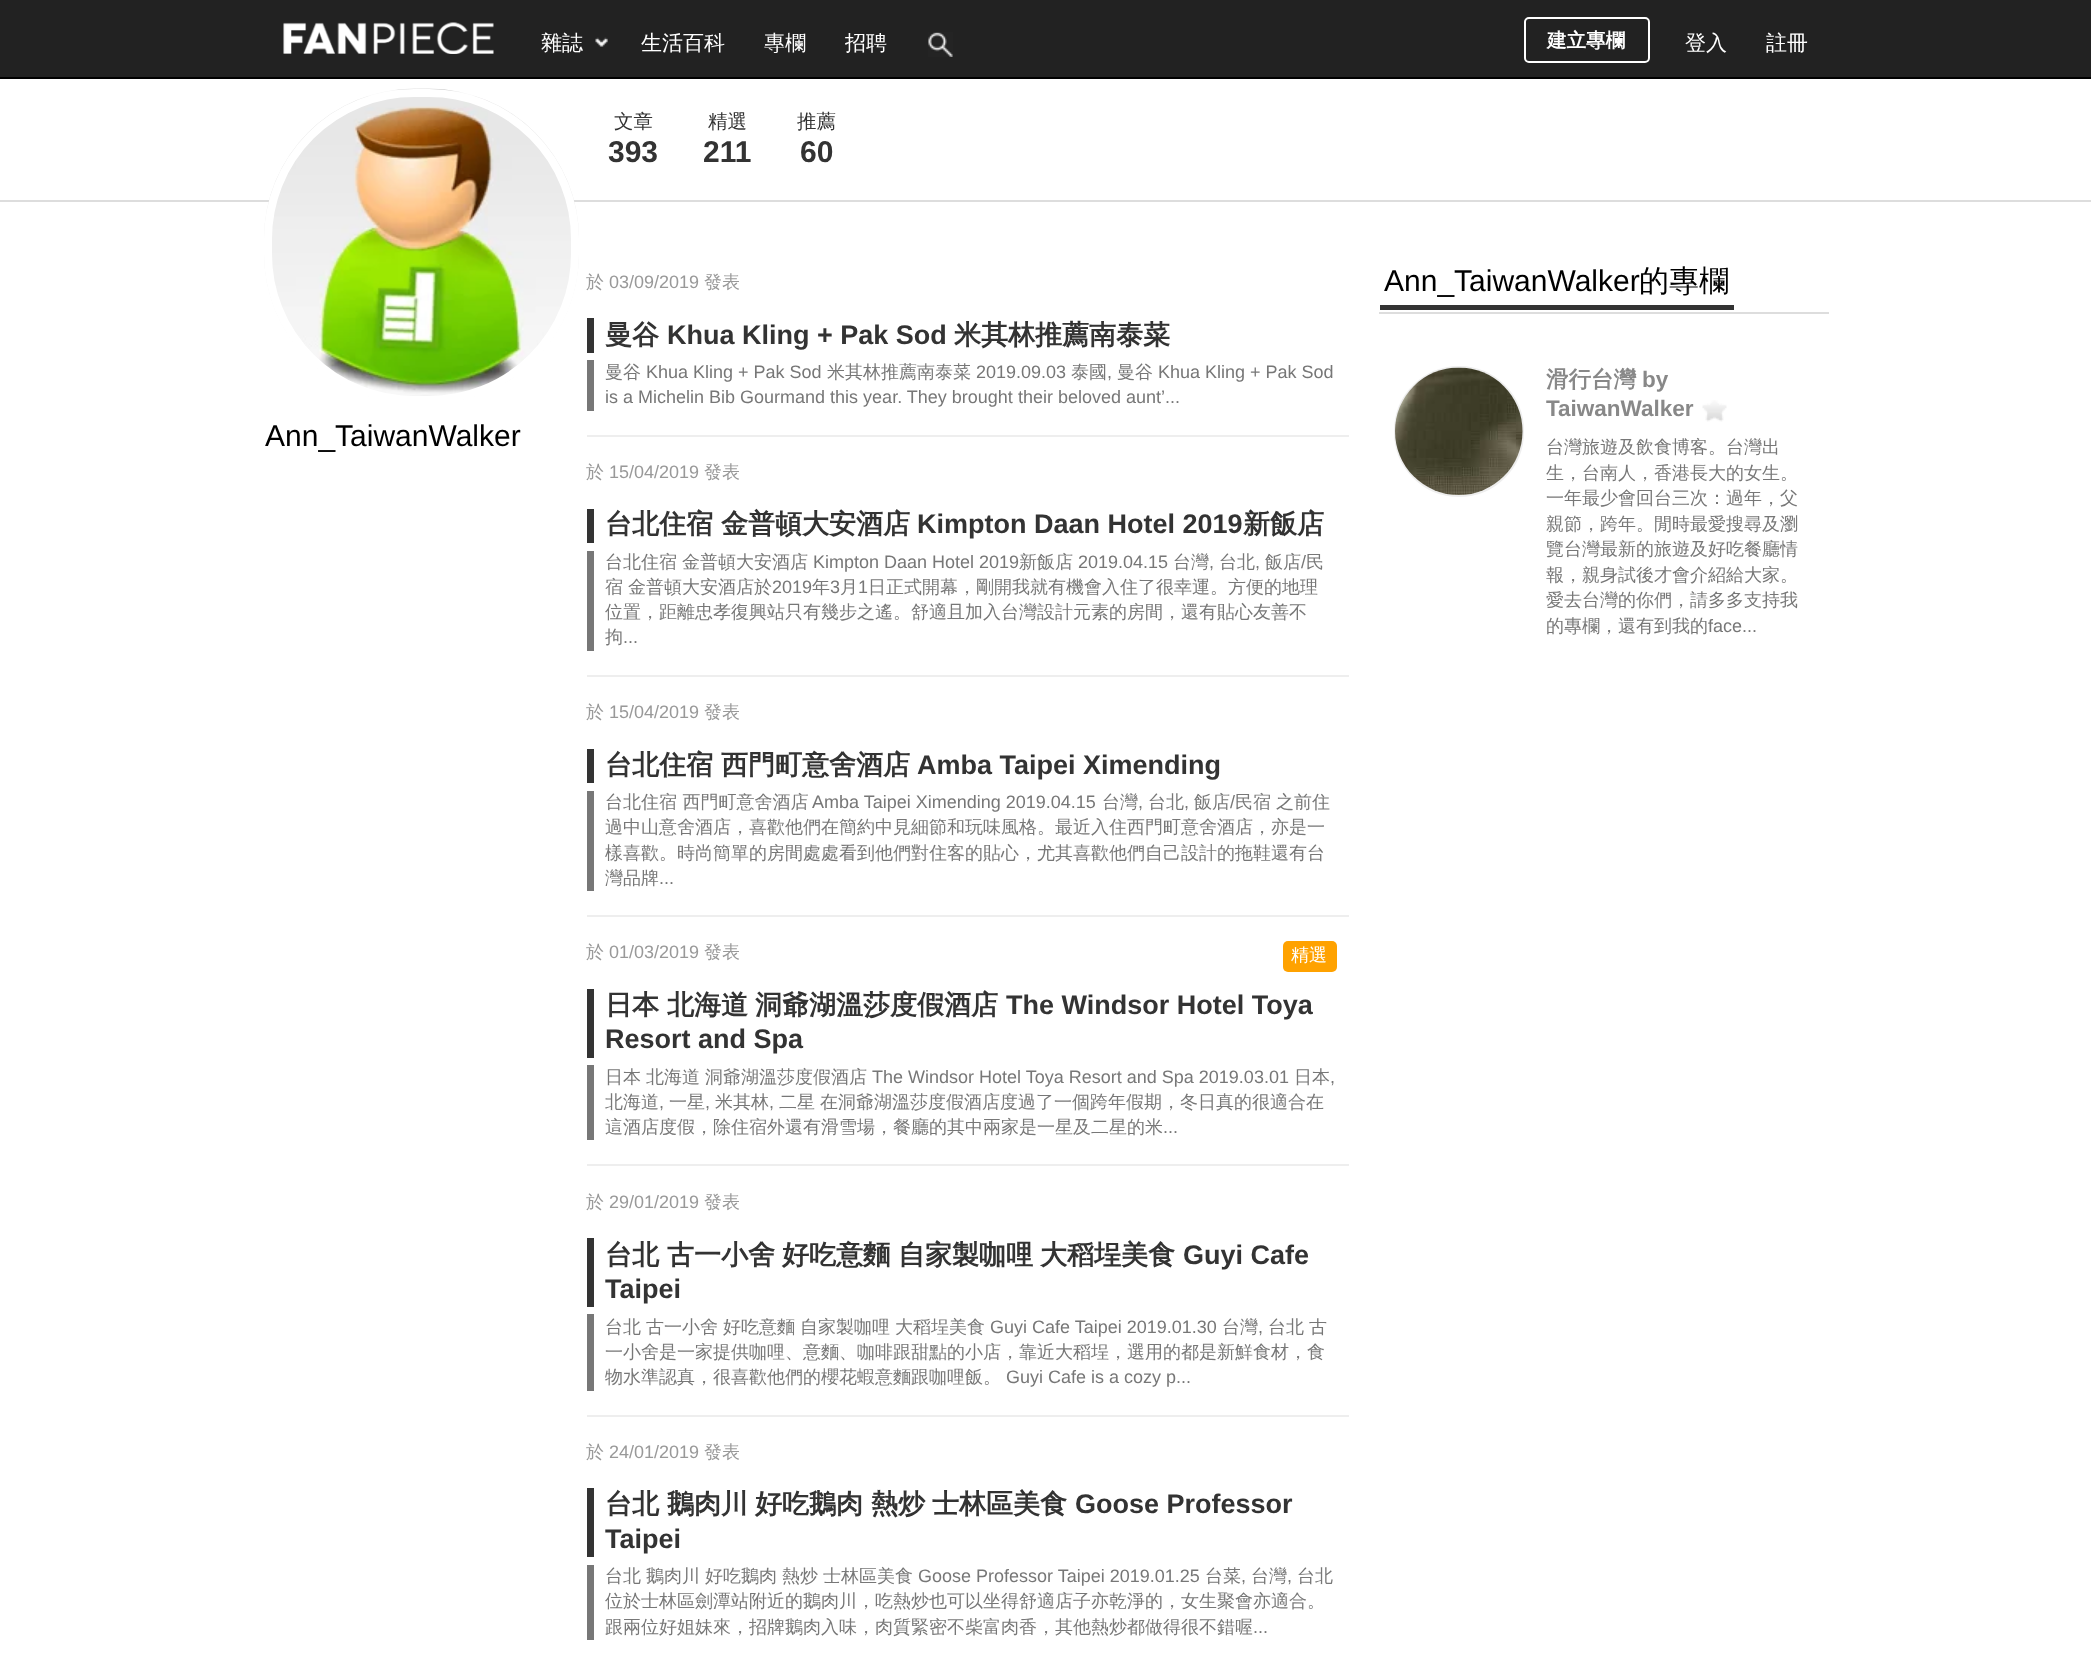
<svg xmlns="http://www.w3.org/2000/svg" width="2091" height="1664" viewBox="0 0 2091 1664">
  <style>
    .t1 { font: 500 21px WenQuanYi Zen Hei; fill: #fff; }
    .t2 { font: bold 19.5px WenQuanYi Zen Hei; fill: #fff; }
    .t3 { font: 500 19.5px WenQuanYi Zen Hei; fill: #333; }
    .t4 { font: bold 30px Liberation Sans; fill: #333; }
    .t5 { font: 30px Liberation Sans; fill: #000; }
    .t6 { font: 500 18px WenQuanYi Zen Hei; fill: #999; }
    .t7 { font: 18px Liberation Sans; fill: #999; }
    .t8 { font: bold 27px WenQuanYi Zen Hei; fill: #333; }
    .t9 { font: bold 27px Liberation Sans; fill: #333; }
    .t10 { font: 500 18px WenQuanYi Zen Hei; fill: #777; }
    .t11 { font: 18px Liberation Sans; fill: #777; }
    .t12 { font: 500 18px WenQuanYi Zen Hei; fill: #fff; }
    .t13 { font: 500 30px WenQuanYi Zen Hei; fill: #000; }
    .t14 { font: bold 22.5px WenQuanYi Zen Hei; fill: #888; }
    .t15 { font: bold 22.5px Liberation Sans; fill: #888; }
  </style>
  <rect width="100%" height="100%" fill="#fff"/>
  <rect x="0" y="0" width="2091" height="77" fill="#222"/>
  <rect x="0" y="77" width="2091" height="2" fill="#000"/>
  <image x="283" y="22" width="211" height="32" href="images/1.png"/>
  <text x="541" y="50" class="t1">雜誌</text>
  <image x="595" y="37" width="13" height="10" href="images/2.png"/>
  <text x="641" y="50" class="t1">生活百科</text>
  <text x="764" y="50" class="t1">專欄</text>
  <text x="845" y="50" class="t1">招聘</text>
  <image x="928" y="32" width="25" height="25" href="images/3.png"/>
  <rect x="1525" y="18" width="124" height="44" rx="4" fill="none" stroke="#fff" stroke-width="2"/>
  <text x="1547" y="47" class="t2">建立專欄</text>
  <text x="1685" y="50" class="t1">登入</text>
  <text x="1766" y="50" class="t1">註冊</text>
  <rect x="0" y="200" width="2091" height="2" fill="#ddd"/>
  <text x="614" y="128" class="t3">文章</text>
  <text x="608" y="162" class="t4">393</text>
  <text x="708" y="128" class="t3">精選</text>
  <text x="703" y="162" class="t4">211</text>
  <text x="797" y="128" class="t3">推薦</text>
  <text x="800" y="162" class="t4">60</text>
  <image x="264" y="88" width="315" height="316" href="images/4.png"/>
  <rect x="268" y="93" width="307" height="307" rx="146" fill="none" stroke="#fff" stroke-width="8"/>
  <text x="265" y="446" class="t5">Ann_TaiwanWalker</text>
  <rect x="587" y="435" width="762" height="2" fill="#eee"/>
  <text x="586" y="288" class="t6">於</text>
  <text x="609" y="288" class="t7">03/09/2019</text>
  <text x="704" y="288" class="t6">發表</text>
  <rect x="587" y="318" width="7" height="35" fill="#333"/>
  <text x="605" y="344" class="t8">曼谷</text>
  <text x="667" y="344" class="t9">Khua Kling + Pak Sod</text>
  <text x="954" y="344" class="t8">米其林推薦南泰菜</text>
  <rect x="587" y="360" width="7" height="51" fill="#777"/>
  <text x="605" y="378" class="t10">曼谷</text>
  <text x="646" y="378" class="t11">Khua Kling + Pak Sod</text>
  <text x="827" y="378" class="t10">米其林推薦南泰菜</text>
  <text x="976" y="378" class="t11">2019.09.03</text>
  <text x="1071" y="378" class="t10">泰國</text>
  <text x="1107" y="378" class="t11">,</text>
  <text x="1117" y="378" class="t10">曼谷</text>
  <text x="1158" y="378" class="t11">Khua Kling + Pak Sod</text>
  <text x="605" y="403" class="t11">is a Michelin Bib Gourmand this year. They brought their beloved aunt’...</text>
  <rect x="587" y="675" width="762" height="2" fill="#eee"/>
  <text x="586" y="478" class="t6">於</text>
  <text x="609" y="478" class="t7">15/04/2019</text>
  <text x="704" y="478" class="t6">發表</text>
  <rect x="587" y="509" width="7" height="34" fill="#333"/>
  <text x="605" y="533" class="t8">台北住宿</text>
  <text x="721" y="533" class="t8">金普頓大安酒店</text>
  <text x="917" y="533" class="t9">Kimpton Daan Hotel 2019</text>
  <text x="1243" y="533" class="t8">新飯店</text>
  <rect x="587" y="551" width="7" height="100" fill="#777"/>
  <text x="605" y="568" class="t10">台北住宿</text>
  <text x="682" y="568" class="t10">金普頓大安酒店</text>
  <text x="813" y="568" class="t11">Kimpton Daan Hotel 2019</text>
  <text x="1019" y="568" class="t10">新飯店</text>
  <text x="1078" y="568" class="t11">2019.04.15</text>
  <text x="1173" y="568" class="t10">台灣</text>
  <text x="1209" y="568" class="t11">,</text>
  <text x="1219" y="568" class="t10">台北</text>
  <text x="1255" y="568" class="t11">,</text>
  <text x="1265" y="568" class="t10">飯店</text>
  <text x="1301" y="568" class="t11">/</text>
  <text x="1306" y="568" class="t10">民</text>
  <text x="605" y="593" class="t10">宿</text>
  <text x="628" y="593" class="t10">金普頓大安酒店於</text>
  <text x="772" y="593" class="t11">2019</text>
  <text x="812" y="593" class="t10">年</text>
  <text x="830" y="593" class="t11">3</text>
  <text x="840" y="593" class="t10">月</text>
  <text x="858" y="593" class="t11">1</text>
  <text x="868" y="593" class="t10">日正式開幕，剛開我就有機會入住了很幸運。方便的地理</text>
  <text x="605" y="618" class="t10">位置，距離忠孝復興站只有幾步之遙。舒適且加入台灣設計元素的房間，還有貼心友善不</text>
  <text x="605" y="643" class="t10">拘</text>
  <text x="623" y="643" class="t11">...</text>
  <rect x="587" y="915" width="762" height="2" fill="#eee"/>
  <text x="586" y="718" class="t6">於</text>
  <text x="609" y="718" class="t7">15/04/2019</text>
  <text x="704" y="718" class="t6">發表</text>
  <rect x="587" y="749" width="7" height="34" fill="#333"/>
  <text x="605" y="774" class="t8">台北住宿</text>
  <text x="721" y="774" class="t8">西門町意舍酒店</text>
  <text x="917" y="774" class="t9">Amba Taipei Ximending</text>
  <rect x="587" y="791" width="7" height="100" fill="#777"/>
  <text x="605" y="808" class="t10">台北住宿 西門町意舍酒店</text>
  <text x="812" y="808" class="t11">Amba Taipei Ximending 2019.04.15</text>
  <text x="1102" y="808" class="t10">台灣</text>
  <text x="1138" y="808" class="t11">,</text>
  <text x="1148" y="808" class="t10">台北</text>
  <text x="1184" y="808" class="t11">,</text>
  <text x="1194" y="808" class="t10">飯店</text>
  <text x="1230" y="808" class="t11">/</text>
  <text x="1235" y="808" class="t10">民宿</text>
  <text x="1276" y="808" class="t10">之前住</text>
  <text x="605" y="833" class="t10">過中山意舍酒店，喜歡他們在簡約中見細節和玩味風格。最近入住西門町意舍酒店，亦是一</text>
  <text x="605" y="859" class="t10">樣喜歡。時尚簡單的房間處處看到他們對住客的貼心，尤其喜歡他們自己設計的拖鞋還有台</text>
  <text x="605" y="884" class="t10">灣品牌</text>
  <text x="659" y="884" class="t11">...</text>
  <rect x="587" y="1164" width="762" height="2" fill="#eee"/>
  <text x="586" y="958" class="t6">於</text>
  <text x="609" y="958" class="t7">01/03/2019</text>
  <text x="704" y="958" class="t6">發表</text>
  <rect x="1283" y="941" width="54" height="31" rx="5" fill="#ffa200"/>
  <text x="1291" y="961" class="t12">精選</text>
  <rect x="587" y="989" width="7" height="69" fill="#333"/>
  <text x="605" y="1014" class="t8">日本</text>
  <text x="667" y="1014" class="t8">北海道</text>
  <text x="755" y="1014" class="t8">洞爺湖溫莎度假酒店</text>
  <text x="1006" y="1014" class="t9">The Windsor Hotel Toya</text>
  <text x="605" y="1048" class="t9">Resort and Spa</text>
  <rect x="587" y="1065" width="7" height="75" fill="#777"/>
  <text x="605" y="1083" class="t10">日本</text>
  <text x="646" y="1083" class="t10">北海道</text>
  <text x="705" y="1083" class="t10">洞爺湖溫莎度假酒店</text>
  <text x="872" y="1083" class="t11">The Windsor Hotel Toya Resort and Spa 2019.03.01</text>
  <text x="1294" y="1083" class="t10">日本</text>
  <text x="1330" y="1083" class="t11">,</text>
  <text x="605" y="1108" class="t10">北海道</text>
  <text x="659" y="1108" class="t11">,</text>
  <text x="669" y="1108" class="t10">一星</text>
  <text x="705" y="1108" class="t11">,</text>
  <text x="715" y="1108" class="t10">米其林</text>
  <text x="769" y="1108" class="t11">,</text>
  <text x="779" y="1108" class="t10">二星</text>
  <text x="820" y="1108" class="t10">在洞爺湖溫莎度假酒店度過了一個跨年假期，冬日真的很適合在</text>
  <text x="605" y="1133" class="t10">這酒店度假，除住宿外還有滑雪場，餐廳的其中兩家是一星及二星的米</text>
  <text x="1163" y="1133" class="t11">...</text>
  <rect x="587" y="1415" width="762" height="2" fill="#eee"/>
  <text x="586" y="1208" class="t6">於</text>
  <text x="609" y="1208" class="t7">29/01/2019</text>
  <text x="704" y="1208" class="t6">發表</text>
  <rect x="587" y="1238" width="7" height="69" fill="#333"/>
  <text x="605" y="1264" class="t8">台北</text>
  <text x="667" y="1264" class="t8">古一小舍</text>
  <text x="782" y="1264" class="t8">好吃意麵</text>
  <text x="898" y="1264" class="t8">自家製咖哩</text>
  <text x="1040" y="1264" class="t8">大稻埕美食</text>
  <text x="1183" y="1264" class="t9">Guyi Cafe</text>
  <text x="605" y="1298" class="t9">Taipei</text>
  <rect x="587" y="1314" width="7" height="77" fill="#777"/>
  <text x="605" y="1333" class="t10">台北</text>
  <text x="646" y="1333" class="t10">古一小舍</text>
  <text x="723" y="1333" class="t10">好吃意麵</text>
  <text x="800" y="1333" class="t10">自家製咖哩</text>
  <text x="895" y="1333" class="t10">大稻埕美食</text>
  <text x="990" y="1333" class="t11">Guyi Cafe Taipei 2019.01.30</text>
  <text x="1222" y="1333" class="t10">台灣</text>
  <text x="1258" y="1333" class="t11">,</text>
  <text x="1268" y="1333" class="t10">台北</text>
  <text x="1309" y="1333" class="t10">古</text>
  <text x="605" y="1358" class="t10">一小舍是一家提供咖哩、意麵、咖啡跟甜點的小店，靠近大稻埕，選用的都是新鮮食材，食</text>
  <text x="605" y="1383" class="t10">物水準認真，很喜歡他們的櫻花蝦意麵跟咖哩飯。</text>
  <text x="1006" y="1383" class="t11">Guyi Cafe is a cozy p...</text>
  <text x="586" y="1458" class="t6">於</text>
  <text x="609" y="1458" class="t7">24/01/2019</text>
  <text x="704" y="1458" class="t6">發表</text>
  <rect x="587" y="1488" width="7" height="69" fill="#333"/>
  <text x="605" y="1513" class="t8">台北</text>
  <text x="667" y="1513" class="t8">鵝肉川</text>
  <text x="755" y="1513" class="t8">好吃鵝肉</text>
  <text x="871" y="1513" class="t8">熱炒</text>
  <text x="932" y="1513" class="t8">士林區美食</text>
  <text x="1075" y="1513" class="t9">Goose Professor</text>
  <text x="605" y="1548" class="t9">Taipei</text>
  <rect x="587" y="1565" width="7" height="75" fill="#777"/>
  <text x="605" y="1582" class="t10">台北</text>
  <text x="646" y="1582" class="t10">鵝肉川</text>
  <text x="705" y="1582" class="t10">好吃鵝肉</text>
  <text x="782" y="1582" class="t10">熱炒</text>
  <text x="823" y="1582" class="t10">士林區美食</text>
  <text x="918" y="1582" class="t11">Goose Professor Taipei 2019.01.25</text>
  <text x="1205" y="1582" class="t10">台菜</text>
  <text x="1241" y="1582" class="t11">,</text>
  <text x="1251" y="1582" class="t10">台灣</text>
  <text x="1287" y="1582" class="t11">,</text>
  <text x="1297" y="1582" class="t10">台北</text>
  <text x="605" y="1607" class="t10">位於士林區劍潭站附近的鵝肉川，吃熱炒也可以坐得舒適店子亦乾淨的，女生聚會亦適合。</text>
  <text x="605" y="1633" class="t10">跟兩位好姐妹來，招牌鵝肉入味，肉質緊密不柴富肉香，其他熱炒都做得很不錯喔</text>
  <text x="1253" y="1633" class="t11">...</text>
  <rect x="1379" y="312" width="450" height="2" fill="#ddd"/>
  <text x="1384" y="291" class="t5">Ann_TaiwanWalker</text>
  <rect x="1380" y="305" width="354" height="5" fill="#333"/>
  <text x="1639" y="291" class="t13">的專欄</text>
  <rect x="1395" y="367" width="128" height="129" rx="64" fill="none" stroke="#eee" stroke-width="2"/>
  <image x="1395" y="367" width="128" height="128" href="images/5.png"/>
  <text x="1546" y="387" class="t14">滑行台灣</text>
  <text x="1642" y="387" class="t15">by</text>
  <text x="1546" y="416" class="t15">TaiwanWalker</text>
  <image x="1702" y="400" width="25" height="22" href="images/6.png"/>
  <text x="1546" y="453" class="t10">台灣旅遊及飲食博客。台灣出</text>
  <text x="1546" y="479" class="t10">生，台南人，香港長大的女生。</text>
  <text x="1546" y="504" class="t10">一年最少會回台三次：過年，父</text>
  <text x="1546" y="530" class="t10">親節，跨年。閒時最愛搜尋及瀏</text>
  <text x="1546" y="555" class="t10">覽台灣最新的旅遊及好吃餐廳情</text>
  <text x="1546" y="581" class="t10">報，親身試後才會介紹給大家。</text>
  <text x="1546" y="606" class="t10">愛去台灣的你們，請多多支持我</text>
  <text x="1546" y="632" class="t10">的專欄，還有到我的</text>
  <text x="1708" y="632" class="t11">face...</text>
</svg>
